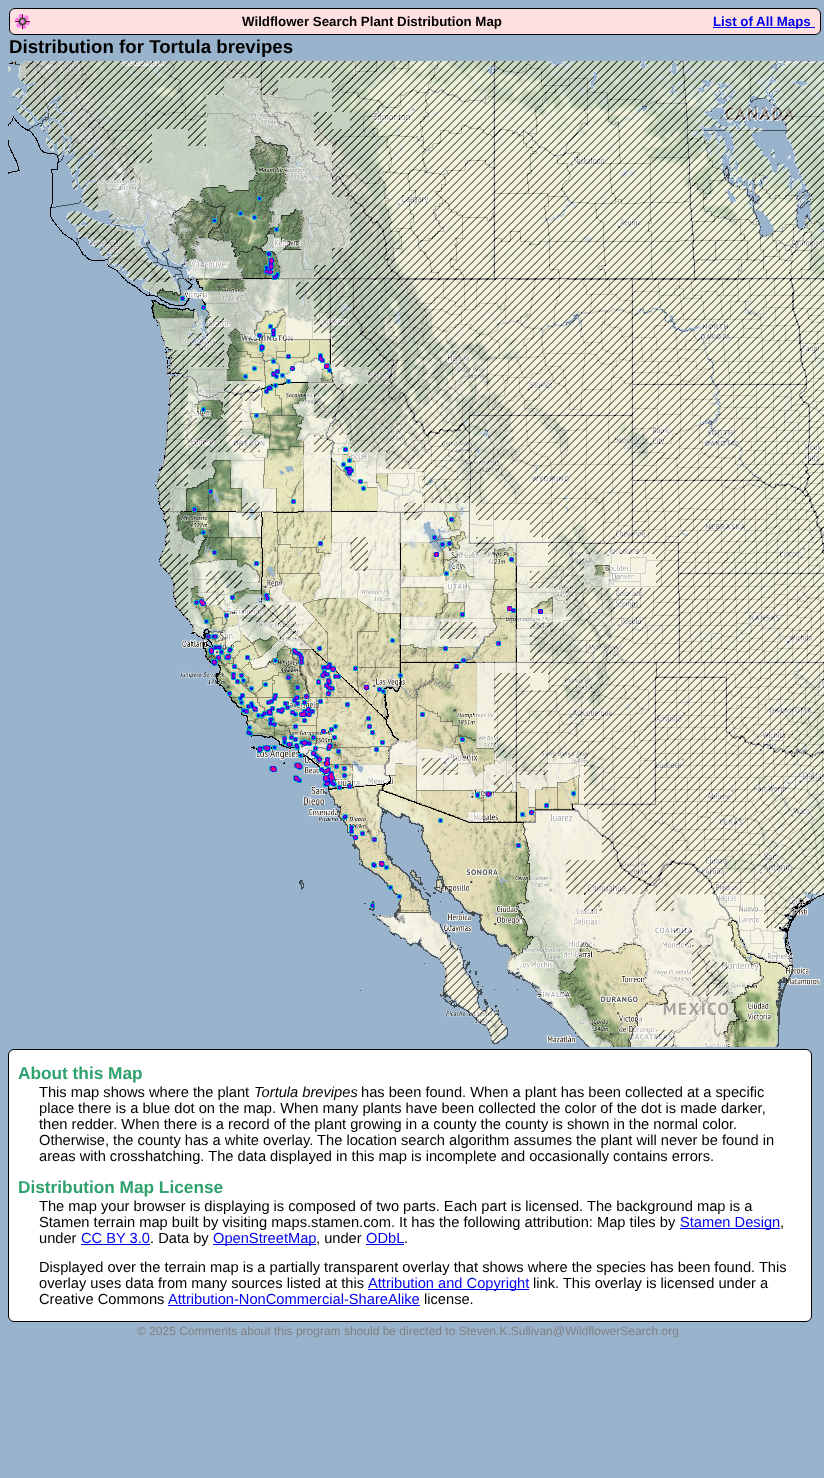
<svg xmlns="http://www.w3.org/2000/svg" width="824" height="1478" viewBox="0 0 824 1478">
  <style>
    .t1 { font: bold 13.3px Liberation Sans; fill: #000; }
    .t2 { font: bold 13.3px Liberation Sans; fill: #00e; }
    .t3 { font: bold 18.7px Liberation Sans; fill: #000; }
    .t4 { font: bold 17.25px Liberation Sans; fill: #2fa16d; }
    .t5 { font: 14.67px Liberation Sans; fill: #000; }
    .t6 { font: italic 14.67px Liberation Sans; fill: #000; }
    .t7 { font: 14.67px Liberation Sans; fill: #00e; }
    .t8 { font: 12px Liberation Sans; fill: #808080; }
  </style>
  <rect width="100%" height="100%" fill="#99b3cc"/>
  <rect x="9.5" y="8.5" width="811" height="26" rx="5.5" fill="#ffe0e0" stroke="#000"/>
  <image x="15" y="14" width="15" height="15" href="images/1.png"/>
  <text x="242" y="26" class="t1">Wildflower Search Plant Distribution Map</text>
  <rect x="713" y="27" width="102" height="1" fill="#00e"/>
  <text x="713" y="26" class="t2">List of All Maps</text>
  <text x="9" y="53" class="t3">Distribution for Tortula brevipes</text>
  <image x="8" y="61" width="816" height="986" href="images/2.png"/>
  <image x="8" y="61" width="816" height="986" href="images/3.png"/>
  <rect x="8.5" y="1049.5" width="803" height="272" rx="5.5" fill="#fff" stroke="#000"/>
  <text x="18" y="1079" class="t4">About this Map</text>
  <text x="39" y="1097" class="t5">This map shows where the plant</text>
  <text x="254" y="1097" class="t6">Tortula brevipes</text>
  <text x="361" y="1097" class="t5">has been found. When a plant has been collected at a specific</text>
  <text x="39" y="1113" class="t5">place there is a blue dot on the map. When many plants have been collected the color of the dot is made darker,</text>
  <text x="39" y="1129" class="t5">then redder. When there is a record of the plant growing in a county the county is shown in the normal color.</text>
  <text x="39" y="1145" class="t5">Otherwise, the county has a white overlay. The location search algorithm assumes the plant will never be found in</text>
  <text x="39" y="1161" class="t5">areas with crosshatching. The data displayed in this map is incomplete and occasionally contains errors.</text>
  <text x="18" y="1193" class="t4">Distribution Map License</text>
  <text x="39" y="1211" class="t5">The map your browser is displaying is composed of two parts. Each part is licensed. The background map is a</text>
  <text x="39" y="1227" class="t5">Stamen terrain map built by visiting maps.stamen.com. It has the following attribution: Map tiles by</text>
  <rect x="680" y="1228" width="100" height="1" fill="#00e"/>
  <text x="680" y="1227" class="t7">Stamen Design</text>
  <text x="780" y="1227" class="t5">,</text>
  <text x="39" y="1243" class="t5">under</text>
  <text x="81" y="1243" class="t7">CC BY 3.0</text>
  <rect x="81" y="1244" width="69" height="1" fill="#00e"/>
  <text x="150" y="1243" class="t5">. Data by</text>
  <rect x="213" y="1244" width="103" height="1" fill="#00e"/>
  <text x="213" y="1243" class="t7">OpenStreetMap</text>
  <text x="316" y="1243" class="t5">, under</text>
  <text x="366" y="1243" class="t7">ODbL</text>
  <rect x="366" y="1244" width="38" height="1" fill="#00e"/>
  <text x="404" y="1243" class="t5">.</text>
  <text x="39" y="1272" class="t5">Displayed over the terrain map is a partially transparent overlay that shows where the species has been found. This</text>
  <text x="39" y="1288" class="t5">overlay uses data from many sources listed at this</text>
  <rect x="368" y="1289" width="161" height="1" fill="#00e"/>
  <text x="368" y="1288" class="t7">Attribution and Copyright</text>
  <text x="533" y="1288" class="t5">link. This overlay is licensed under a</text>
  <text x="39" y="1304" class="t5">Creative Commons</text>
  <text x="168" y="1304" class="t7">Attribution-NonCommercial-ShareAlike</text>
  <rect x="168" y="1305" width="252" height="1" fill="#00e"/>
  <text x="424" y="1304" class="t5">license.</text>
  <text x="137" y="1335" class="t8">© 2025 Comments about this program should be directed to Steven.K.Sullivan@WildflowerSearch.org</text>
</svg>
